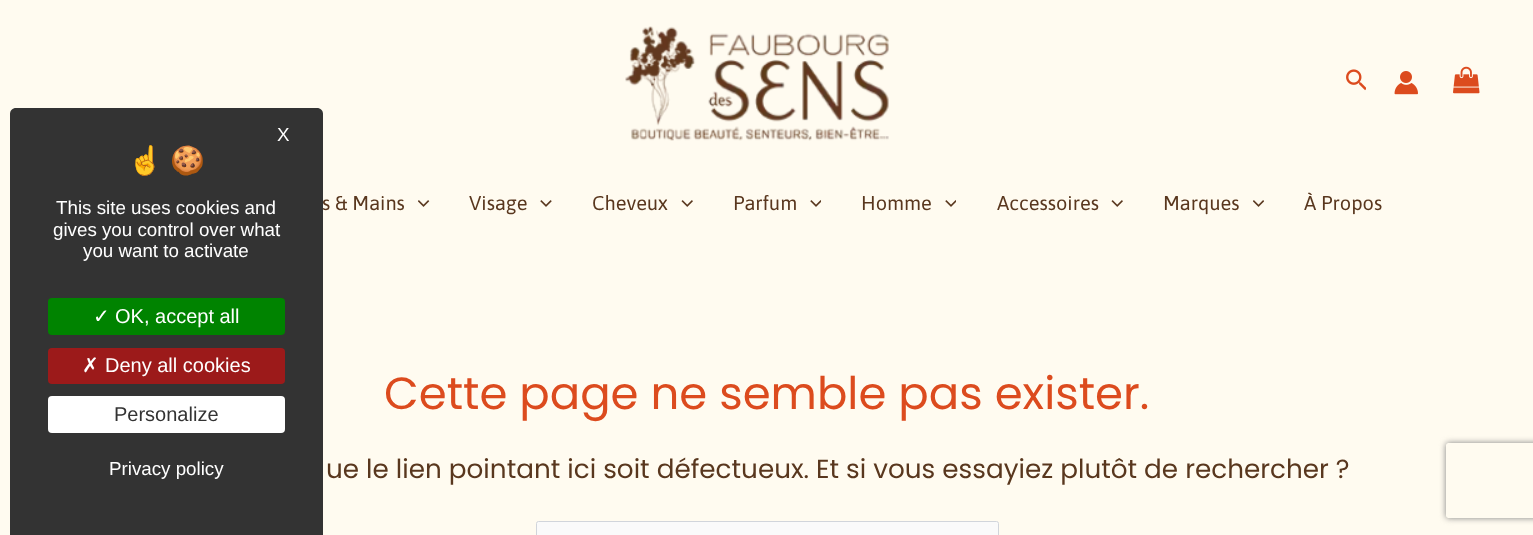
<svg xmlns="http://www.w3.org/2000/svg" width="1533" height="535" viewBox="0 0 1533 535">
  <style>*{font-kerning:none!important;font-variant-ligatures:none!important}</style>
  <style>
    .t1 { font: 20px Asap; fill: #59371e; }
    .t2 { font: 18.75px Liberation Sans; fill: #fff; }
    .t3 { font: 28px Noto Color Emoji; fill: #fff; }
    .t4 { font: 20px DejaVu Sans; fill: #fff; }
    .t5 { font: 20px Liberation Sans; fill: #fff; }
    .t6 { font: 20px Liberation Sans; fill: #333; }
    .t7 { font: 45px Poppins; fill: #dc4b1e; }
    .t8 { font: 26.25px Poppins; fill: #59371e; }
  </style>
  <defs>
    <clipPath id="clip1"><path d="M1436 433H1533V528H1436ZM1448.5 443H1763.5C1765 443 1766 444 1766 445.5V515.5C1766 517 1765 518 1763.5 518H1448.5C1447 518 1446 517 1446 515.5V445.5C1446 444 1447 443 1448.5 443Z" clip-rule="evenodd"/></clipPath>
  </defs>
  <rect width="100%" height="100%" fill="#fffbf0"/>
  <text x="322" y="210" class="t1">s &amp; Mains</text>
  <path d="M16 108H317C320.5 108 323 110.5 323 114V535H10V114C10 110.5 12.5 108 16 108Z" fill="#333"/>
  <text x="277" y="141" class="t2">X</text>
  <text x="128" y="170" class="t3">☝</text>
  <text x="170" y="170" class="t3">🍪</text>
  <text x="56" y="214" class="t2">This site uses cookies and</text>
  <text x="53" y="236" class="t2">gives you control over what</text>
  <text x="83" y="257" class="t2">you want to activate</text>
  <rect x="48" y="298" width="237" height="37" rx="4" fill="#008300"/>
  <text x="93" y="323" class="t4">✓</text>
  <text x="115" y="323" class="t5">OK, accept all</text>
  <rect x="48" y="348" width="237" height="36" rx="4" fill="#9c1a1a"/>
  <text x="82" y="372" class="t4">✗</text>
  <text x="105" y="372" class="t5">Deny all cookies</text>
  <rect x="48" y="396" width="237" height="37" rx="4" fill="#fff"/>
  <text x="114" y="421" class="t6">Personalize</text>
  <text x="109" y="475" class="t2">Privacy policy</text>
  <image x="625" y="26" width="264" height="115" href="images/1.png"/>
  <image x="1346" y="69" width="20" height="22" href="images/2.png"/>
  <image x="1394" y="71" width="24" height="24" href="images/3.png"/>
  <image x="1453" y="66" width="27" height="28" href="images/4.png"/>
  <image x="418" y="200" width="12" height="7" href="images/5.png"/>
  <text x="469" y="210" class="t1">Visage</text>
  <image x="540" y="200" width="12" height="7" href="images/6.png"/>
  <text x="592" y="210" class="t1">Cheveux</text>
  <image x="681" y="200" width="12" height="7" href="images/7.png"/>
  <text x="733" y="210" class="t1">Parfum</text>
  <image x="810" y="200" width="11" height="7" href="images/8.png"/>
  <text x="861" y="210" class="t1">Homme</text>
  <image x="945" y="200" width="11" height="7" href="images/8.png"/>
  <text x="997" y="210" class="t1">Accessoires</text>
  <image x="1111" y="200" width="12" height="7" href="images/7.png"/>
  <text x="1163" y="210" class="t1">Marques</text>
  <image x="1253" y="200" width="11" height="7" href="images/9.png"/>
  <text x="1304" y="210" class="t1">À Propos</text>
  <text x="384" y="409" class="t7">Cette page ne semble pas exister.</text>
  <text x="326" y="478" class="t8">ue le lien pointant ici soit défectueux. Et si vous essayiez plutôt de rechercher ?</text>
  <rect x="536.5" y="521.5" width="462" height="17" rx="2" fill="#fafafa" stroke="#d1d5db"/>
  <g clip-path="url(#clip1)">
    <rect x="1446" y="443" width="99" height="75" rx="2.5" fill="#808080" filter="blur(3px)"/>
  </g>
</svg>
